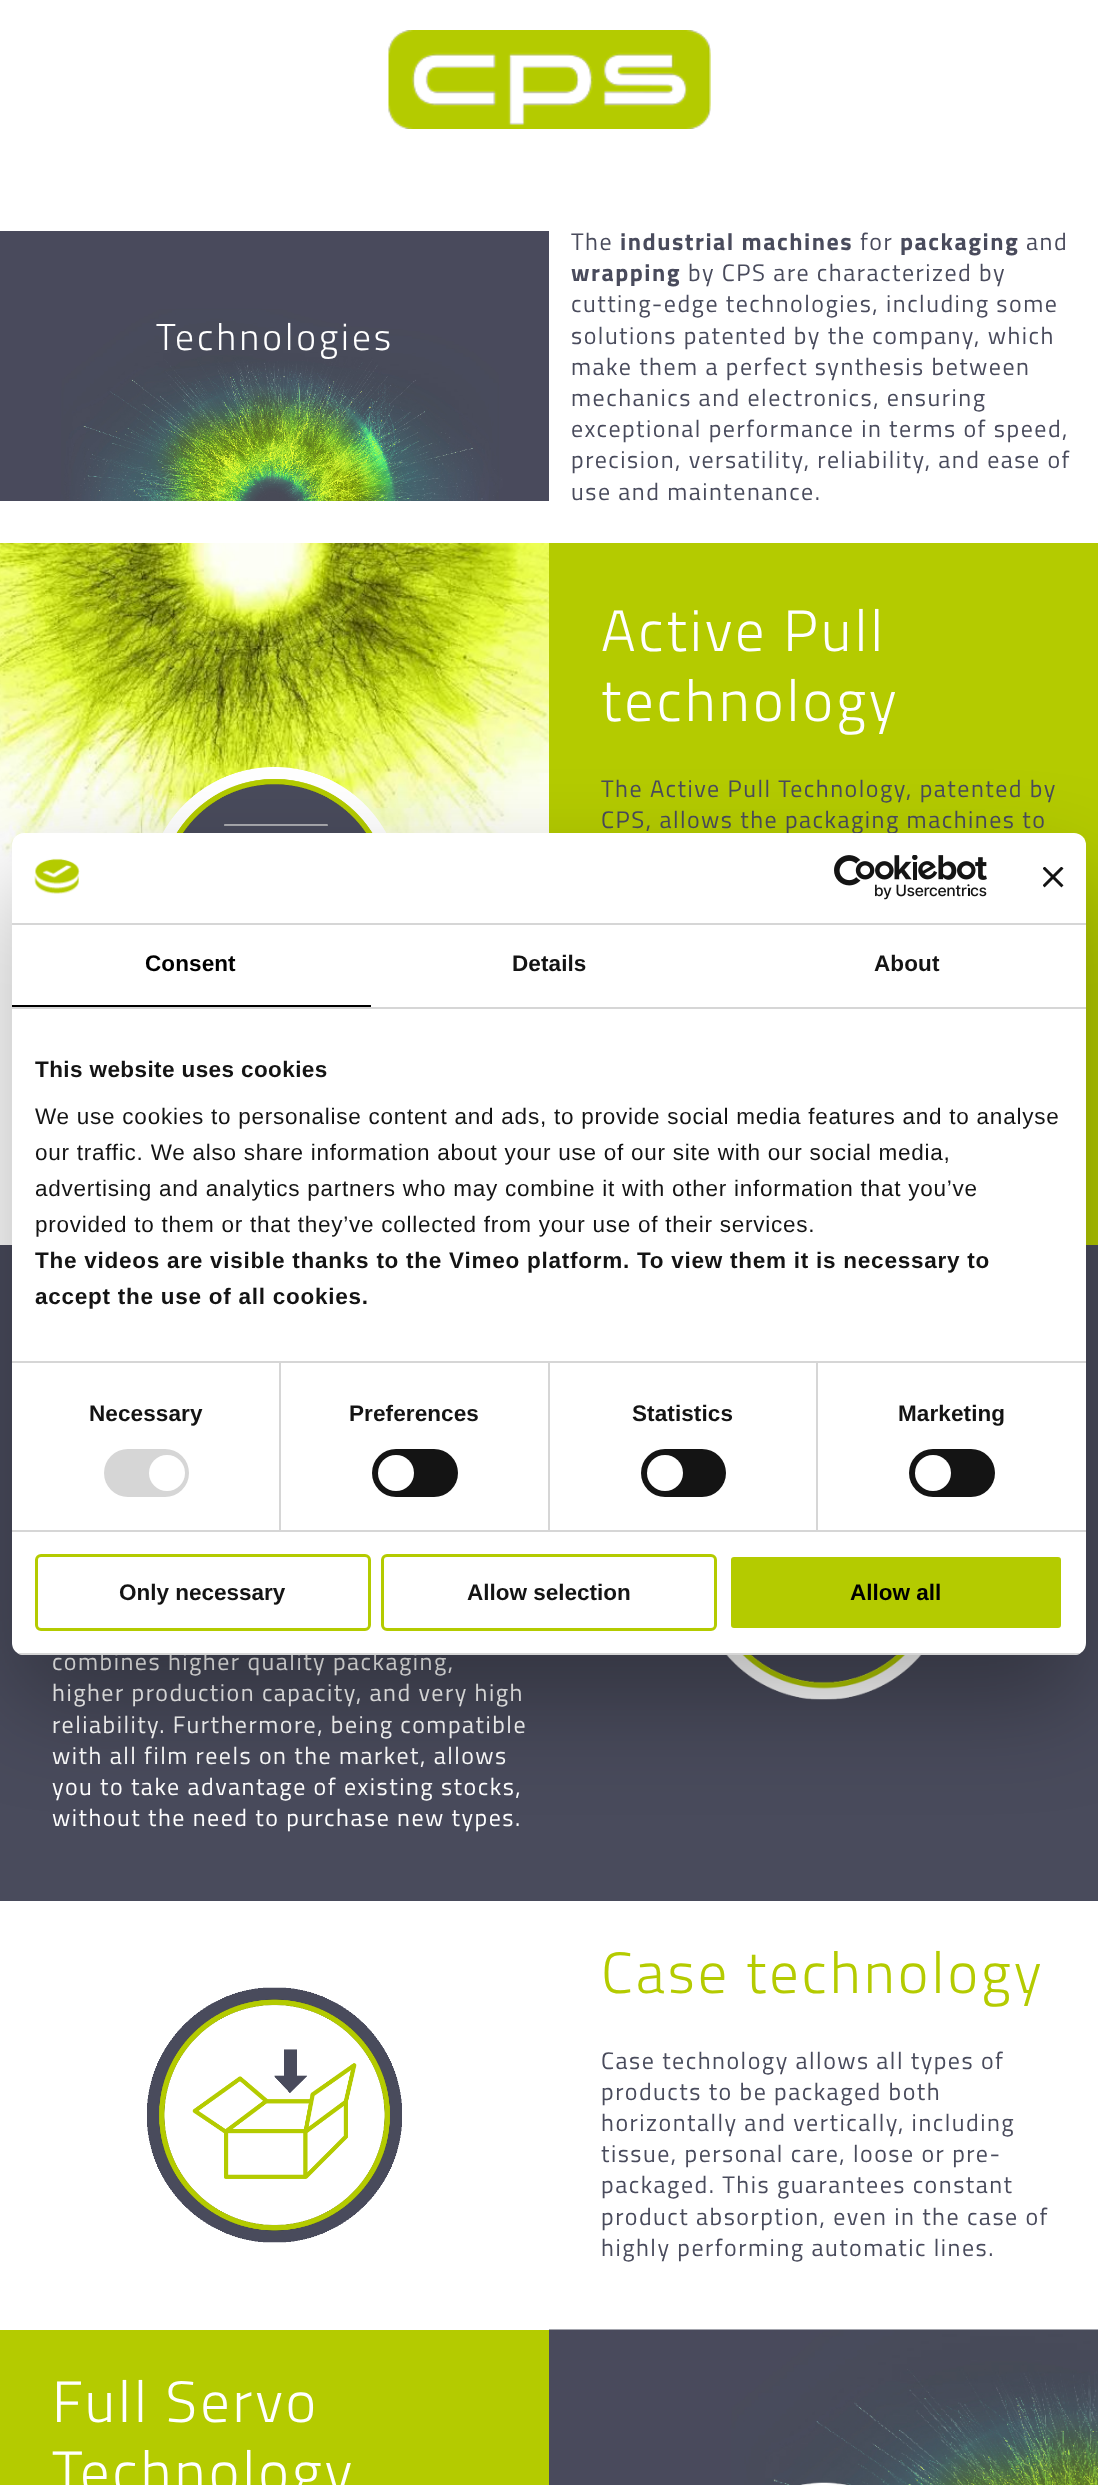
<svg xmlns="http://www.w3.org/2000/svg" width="1098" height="2485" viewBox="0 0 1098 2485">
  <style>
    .t1 { font: 300 37.5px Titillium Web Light; letter-spacing: 3px; fill: #fff; }
    .t2 { font: 24px Titillium Web; letter-spacing: 1.5px; fill: #494b5c; }
    .t3 { font: bold 24px Titillium Web; letter-spacing: 1.5px; fill: #494b5c; }
    .t4 { font: 300 58.25px Titillium Web Light; letter-spacing: 3px; fill: #fff; }
    .t5 { font: 24px Titillium Web; letter-spacing: 1.5px; fill: #fff; }
    .t6 { font: 300 58.25px Titillium Web Light; letter-spacing: 3px; fill: #b4cb00; }
    .t7 { font: bold 22.5px Liberation Sans; letter-spacing: 0.1px; fill: #000; }
    .t8 { font: bold 22.5px Liberation Sans; letter-spacing: 0.1px; fill: #141414; }
    .t9 { font: bold 22.5px Liberation Sans; letter-spacing: 0.4px; fill: #141414; }
    .t10 { font: 22.5px Liberation Sans; letter-spacing: 0.75px; fill: #141414; }
    .t11 { font: bold 22.5px Liberation Sans; letter-spacing: 0.75px; fill: #141414; }
    .t12 { font: bold 22.5px Liberation Sans; fill: #141414; }
    .t13 { font: bold 22.5px Liberation Sans; fill: #000; }
  </style>
  <defs>
    <clipPath id="clip1"><rect x="12" y="833" width="1074" height="822" rx="12"/></clipPath>
  </defs>
  <rect width="100%" height="100%" fill="#fff"/>
  <image x="388" y="30" width="323" height="99" href="images/1.png"/>
  <image x="0" y="231" width="549" height="270" href="images/2.png"/>
  <text x="156" y="350" class="t1">Technologies</text>
  <text x="571" y="250" class="t2">The</text>
  <text x="620" y="250" class="t3">industrial machines</text>
  <text x="860" y="250" class="t2">for</text>
  <text x="900" y="250" class="t3">packaging</text>
  <text x="1026" y="250" class="t2">and</text>
  <text x="571" y="281" class="t3">wrapping</text>
  <text x="688" y="281" class="t2">by CPS are characterized by</text>
  <text x="571" y="312" class="t2">cutting-edge technologies, including some</text>
  <text x="571" y="344" class="t2">solutions patented by the company, which</text>
  <text x="571" y="375" class="t2">make them a perfect synthesis between</text>
  <text x="571" y="406" class="t2">mechanics and electronics, ensuring</text>
  <text x="571" y="437" class="t2">exceptional performance in terms of speed,</text>
  <text x="571" y="468" class="t2">precision, versatility, reliability, and ease of</text>
  <text x="571" y="500" class="t2">use and maintenance.</text>
  <image x="0" y="543" width="549" height="327" href="images/3.png"/>
  <image x="162" y="767" width="225" height="66" href="images/4.png"/>
  <rect x="549" y="543" width="549" height="702" fill="#b4cb00"/>
  <text x="601" y="651" class="t4">Active Pull</text>
  <text x="601" y="721" class="t4">technology</text>
  <text x="601" y="797" class="t2">The Active Pull Technology, patented by</text>
  <text x="601" y="828" class="t2">CPS, allows the packaging machines to</text>
  <rect x="0" y="1245" width="1098" height="656" fill="#494b5c"/>
  <text x="52" y="1670" class="t5">combines higher quality packaging,</text>
  <text x="52" y="1701" class="t5">higher production capacity, and very high</text>
  <text x="52" y="1733" class="t5">reliability. Furthermore, being compatible</text>
  <text x="52" y="1764" class="t5">with all film reels on the market, allows</text>
  <text x="52" y="1795" class="t5">you to take advantage of existing stocks,</text>
  <text x="52" y="1826" class="t5">without the need to purchase new types.</text>
  <image x="726" y="1655" width="196" height="45" href="images/5.png"/>
  <image x="147" y="1987" width="255" height="256" href="images/6.png"/>
  <text x="601" y="1993" class="t6">Case technology</text>
  <text x="601" y="2069" class="t2">Case technology allows all types of</text>
  <text x="601" y="2100" class="t2">products to be packaged both</text>
  <text x="601" y="2131" class="t2">horizontally and vertically, including</text>
  <text x="601" y="2162" class="t2">tissue, personal care, loose or pre-</text>
  <text x="601" y="2193" class="t2">packaged. This guarantees constant</text>
  <text x="601" y="2225" class="t2">product absorption, even in the case of</text>
  <text x="601" y="2256" class="t2">highly performing automatic lines.</text>
  <rect x="0" y="2330" width="549" height="155" fill="#b4cb00"/>
  <text x="52" y="2422" class="t4">Full Servo</text>
  <text x="52" y="2492" class="t4">Technology</text>
  <image x="549" y="2329" width="549" height="156" href="images/7.png"/>
  <image x="800" y="2482" width="48" height="3" href="images/8.png"/>
  <rect x="12" y="881" width="1074" height="822" rx="12" fill="#0000004d" filter="blur(51px)"/>
  <rect x="12" y="833" width="1074" height="822" rx="12" fill="#fff"/>
  <rect x="12" y="923" width="1074" height="2" fill="#d6d6d6"/>
  <image x="34" y="858" width="46" height="36" href="images/9.png"/>
  <image x="834" y="855" width="153" height="45" href="images/10.png"/>
  <image x="1043" y="867" width="21" height="21" href="images/11.png"/>
  <rect x="12" y="1007" width="1074" height="2" fill="#d6d6d6"/>
  <rect x="12" y="1005" width="359" height="2" fill="#000"/>
  <text x="145" y="971" class="t7">Consent</text>
  <text x="512" y="971" class="t8">Details</text>
  <text x="874" y="971" class="t8">About</text>
  <rect x="279" y="1362" width="2" height="168" fill="#d6d6d6"/>
  <rect x="548" y="1362" width="2" height="168" fill="#d6d6d6"/>
  <rect x="816" y="1362" width="2" height="168" fill="#d6d6d6"/>
  <rect x="12" y="1361" width="1074" height="2" fill="#d6d6d6"/>
  <text x="35" y="1077" class="t9">This website uses cookies</text>
  <text x="35" y="1124" class="t10">We use cookies to personalise content and ads, to provide social media features and to analyse</text>
  <text x="35" y="1160" class="t10">our traffic. We also share information about your use of our site with our social media,</text>
  <text x="35" y="1196" class="t10">advertising and analytics partners who may combine it with other information that you’ve</text>
  <text x="35" y="1232" class="t10">provided to them or that they’ve collected from your use of their services.</text>
  <text x="35" y="1268" class="t11">The videos are visible thanks to the Vimeo platform. To view them it is necessary to</text>
  <text x="35" y="1304" class="t11">accept the use of all cookies.</text>
  <rect x="12" y="1530" width="1074" height="2" fill="#d6d6d6"/>
  <text x="89" y="1421" class="t8">Necessary</text>
  <rect x="104" y="1449" width="85" height="48" rx="24" fill="#d6d6d6"/>
  <circle cx="167" cy="1473" r="18" fill="#fff"/>
  <text x="349" y="1421" class="t8">Preferences</text>
  <rect x="372" y="1449" width="86" height="48" rx="24" fill="#141414"/>
  <circle cx="396" cy="1473" r="18" fill="#fff"/>
  <text x="632" y="1421" class="t8">Statistics</text>
  <rect x="641" y="1449" width="85" height="48" rx="24" fill="#141414"/>
  <circle cx="665" cy="1473" r="18" fill="#fff"/>
  <text x="898" y="1421" class="t8">Marketing</text>
  <rect x="909" y="1449" width="86" height="48" rx="24" fill="#141414"/>
  <circle cx="933" cy="1473" r="18" fill="#fff"/>
  <g clip-path="url(#clip1)">
    <rect x="12" y="1653" width="1074" height="2" fill="#d6d6d6"/>
  </g>
  <rect x="36.5" y="1555.5" width="333" height="74" rx="4.5" fill="none" stroke="#b4cb00" stroke-width="3"/>
  <text x="119" y="1600" class="t12">Only necessary</text>
  <rect x="382.5" y="1555.5" width="333" height="74" rx="4.5" fill="none" stroke="#b4cb00" stroke-width="3"/>
  <text x="467" y="1600" class="t12">Allow selection</text>
  <rect x="729.5" y="1555.5" width="333" height="74" rx="4.5" fill="#b4cb00" stroke="#fff" stroke-width="3"/>
  <text x="850" y="1600" class="t13">Allow all</text>
</svg>
